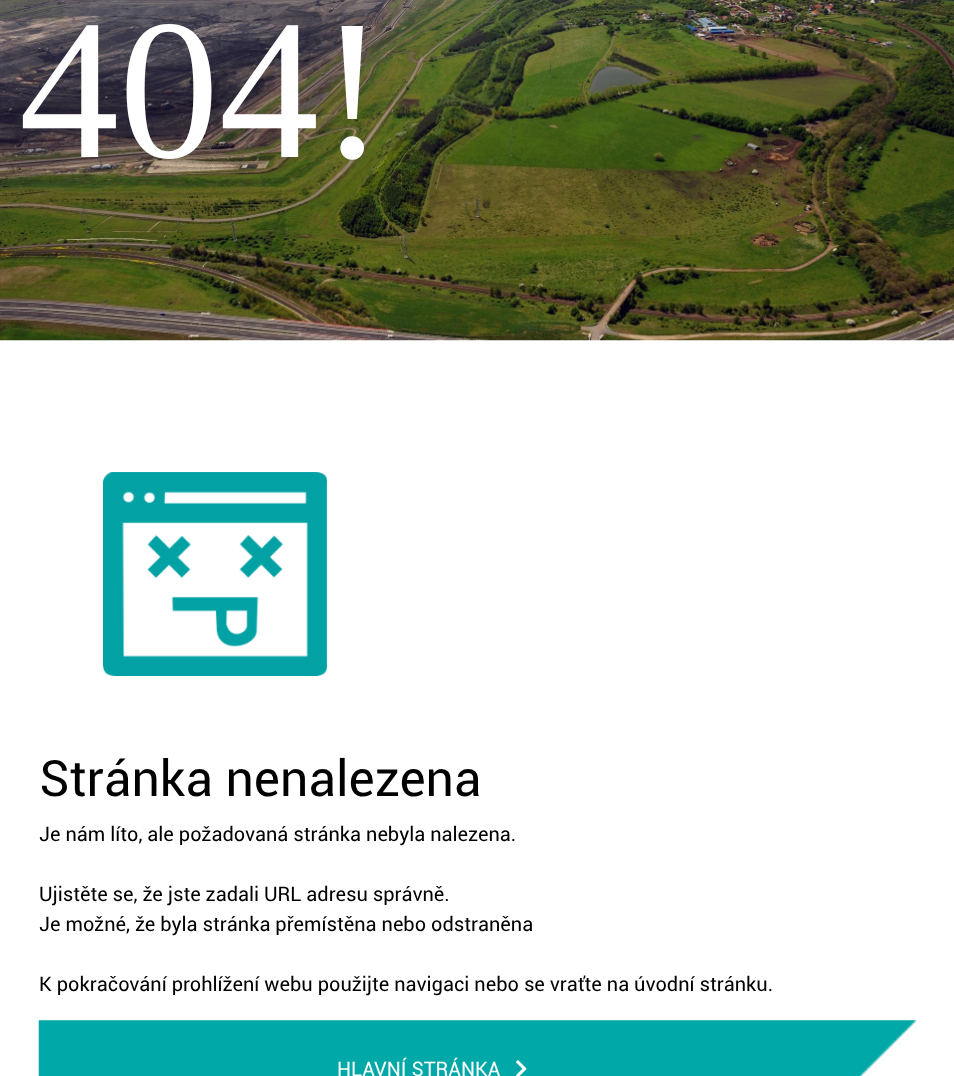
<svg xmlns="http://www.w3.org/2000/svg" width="954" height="1076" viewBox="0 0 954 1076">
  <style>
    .t1 { font: 200px Liberation Serif; fill: #fff; }
    .t2 { font: 50px Roboto; fill: #000; }
    .t3 { font: 20px Roboto; fill: #000; }
    .t4 { font: 20px Roboto; fill: #fff; }
  </style>
  <rect width="100%" height="100%" fill="#fff"/>
  <image x="0" y="0" width="954" height="341" href="images/1.png"/>
  <text x="19" y="157" class="t1">404!</text>
  <image x="103" y="472" width="225" height="204" href="images/2.png"/>
  <text x="39" y="796" class="t2">Stránka nenalezena</text>
  <text x="39" y="841" class="t3">Je nám líto, ale požadovaná stránka nebyla nalezena.</text>
  <text x="39" y="901" class="t3">Ujistěte se, že jste zadali URL adresu správně.</text>
  <text x="39" y="931" class="t3">Je možné, že byla stránka přemístěna nebo odstraněna</text>
  <text x="39" y="991" class="t3">K pokračování prohlížení webu použijte navigaci nebo se vraťte na úvodní stránku.</text>
  <image x="38" y="1020" width="879" height="56" href="images/3.png"/>
  <text x="337" y="1076" class="t4">HLAVNÍ STRÁNKA</text>
  <image x="516" y="1060" width="11" height="16" href="images/4.png"/>
</svg>
